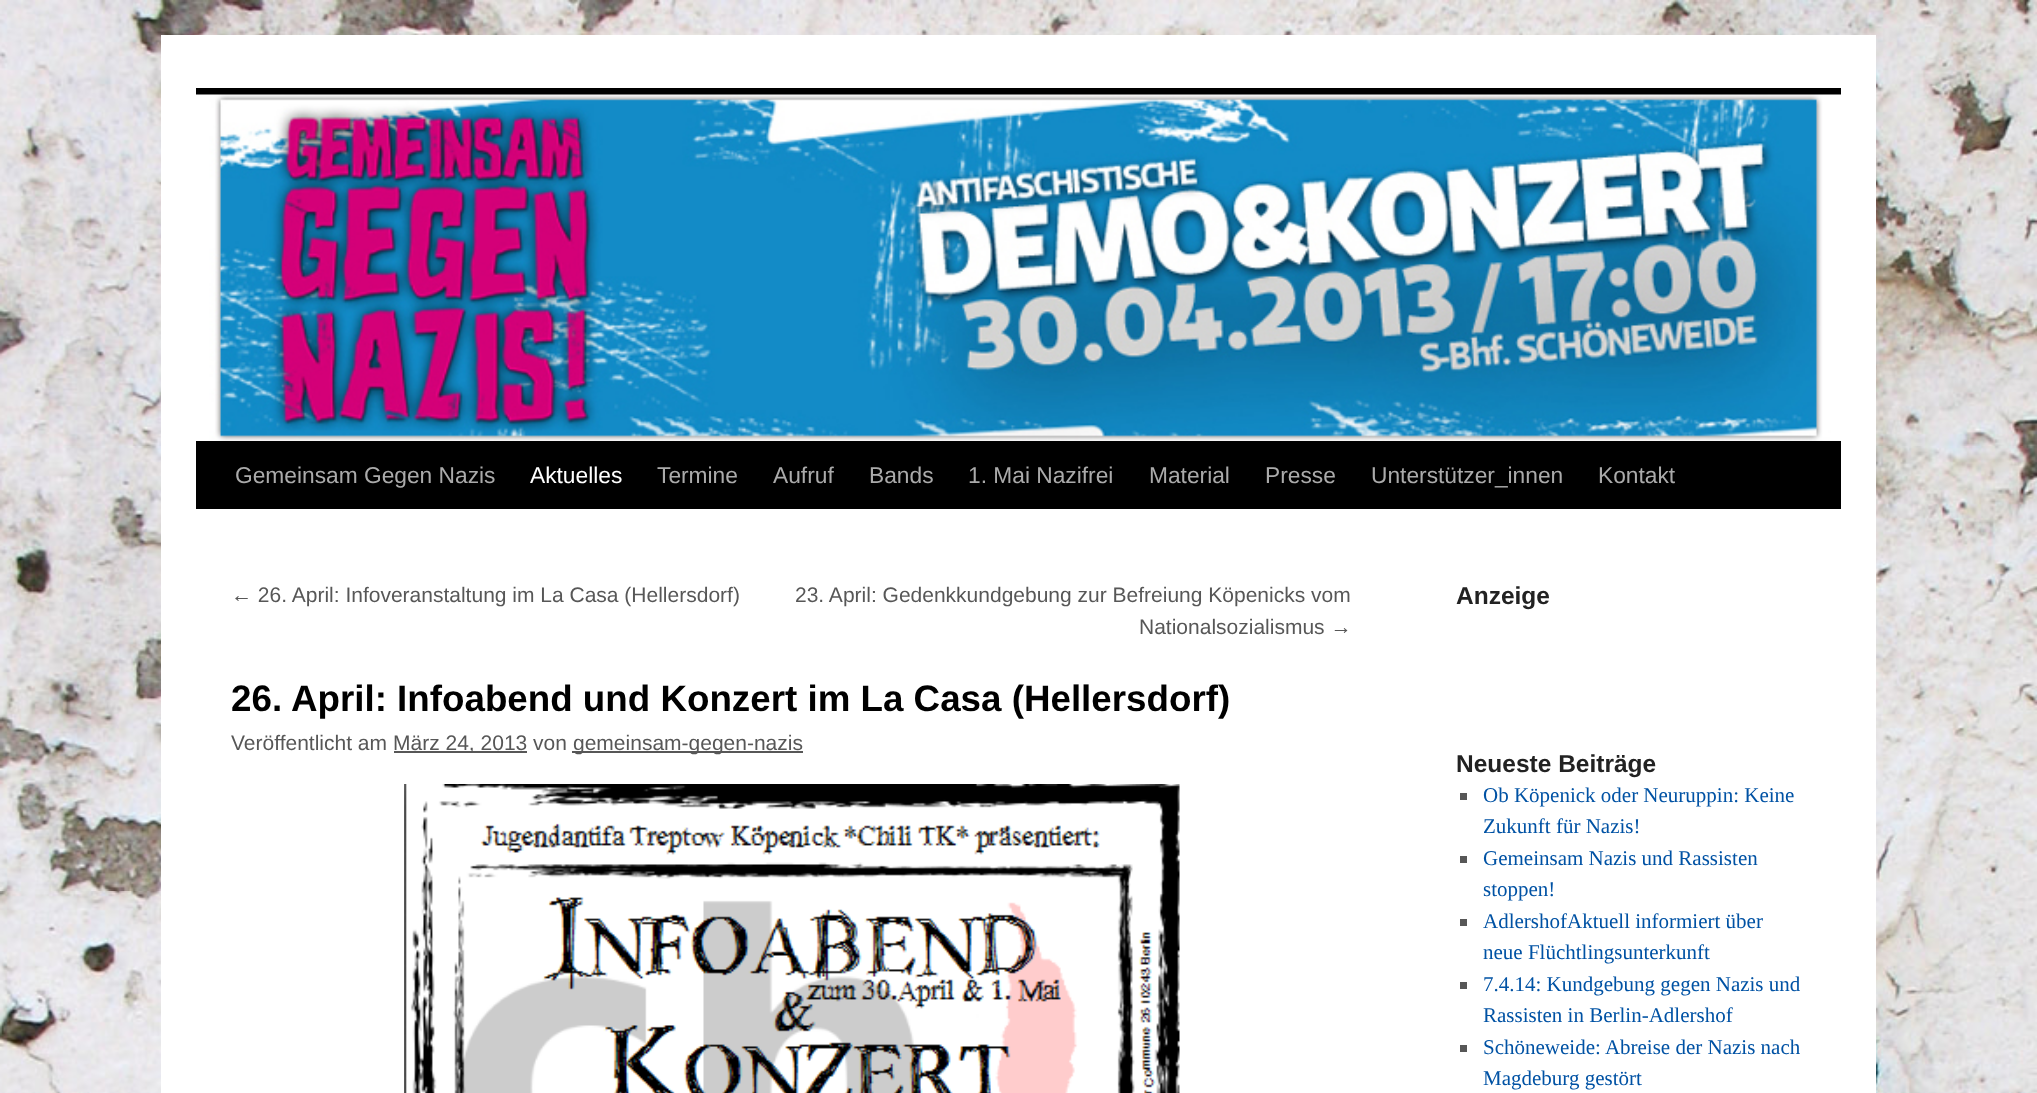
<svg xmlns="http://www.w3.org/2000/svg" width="2037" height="1093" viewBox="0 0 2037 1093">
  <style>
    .t1 { font: 22.75px Liberation Sans; fill: #aaa; }
    .t2 { font: 22.75px Liberation Sans; fill: #fff; }
    .t3 { font: 21px Liberation Sans; fill: #575757; }
    .t4 { font: bold 36.75px Liberation Sans; fill: #000; }
    .t5 { font: bold 24.5px Liberation Sans; fill: #222; }
    .t6 { font: 21px Liberation Serif; fill: #0052a4; }
  </style>
  <rect width="100%" height="100%" fill="#fff"/>
  <image x="0" y="0" width="2037" height="1093" href="images/1.png"/>
  <rect x="161" y="35" width="1715" height="1058" fill="#fff"/>
  <rect x="196" y="88" width="1645" height="7" fill="#000"/>
  <rect x="196" y="441" width="1645" height="68" fill="#000"/>
  <image x="196" y="94" width="1645" height="347" href="images/2.png"/>
  <text x="235" y="483" class="t1">Gemeinsam Gegen Nazis</text>
  <text x="530" y="483" class="t2">Aktuelles</text>
  <text x="657" y="483" class="t1">Termine</text>
  <text x="773" y="483" class="t1">Aufruf</text>
  <text x="869" y="483" class="t1">Bands</text>
  <text x="968" y="483" class="t1">1. Mai Nazifrei</text>
  <text x="1149" y="483" class="t1">Material</text>
  <text x="1265" y="483" class="t1">Presse</text>
  <text x="1371" y="483" class="t1">Unterstützer_innen</text>
  <text x="1598" y="483" class="t1">Kontakt</text>
  <text x="231" y="602" class="t3">← 26. April: Infoveranstaltung im La Casa (Hellersdorf)</text>
  <text x="795" y="602" class="t3">23. April: Gedenkkundgebung zur Befreiung Köpenicks vom</text>
  <text x="1139" y="634" class="t3">Nationalsozialismus →</text>
  <text x="231" y="711" class="t4">26. April: Infoabend und Konzert im La Casa (Hellersdorf)</text>
  <text x="231" y="750" class="t3">Veröffentlicht am</text>
  <rect x="394" y="751" width="133" height="2" fill="#575757"/>
  <text x="393" y="750" class="t3">März 24, 2013 von</text>
  <rect x="572" y="751" width="231" height="2" fill="#575757"/>
  <text x="573" y="750" class="t3">gemeinsam-gegen-nazis</text>
  <image x="404" y="784" width="776" height="309" href="images/3.png"/>
  <text x="1456" y="604" class="t5">Anzeige</text>
  <text x="1456" y="772" class="t5">Neueste Beiträge</text>
  <rect x="1460" y="793" width="7" height="7" fill="#575757"/>
  <text x="1483" y="802" class="t6">Ob Köpenick oder Neuruppin: Keine</text>
  <text x="1483" y="833" class="t6">Zukunft für Nazis!</text>
  <rect x="1460" y="856" width="7" height="7" fill="#575757"/>
  <text x="1483" y="865" class="t6">Gemeinsam Nazis und Rassisten</text>
  <text x="1483" y="896" class="t6">stoppen!</text>
  <rect x="1460" y="919" width="7" height="7" fill="#575757"/>
  <text x="1483" y="928" class="t6">AdlershofAktuell informiert über</text>
  <text x="1483" y="959" class="t6">neue Flüchtlingsunterkunft</text>
  <rect x="1460" y="982" width="7" height="7" fill="#575757"/>
  <text x="1483" y="991" class="t6">7.4.14: Kundgebung gegen Nazis und</text>
  <text x="1483" y="1022" class="t6">Rassisten in Berlin-Adlershof</text>
  <rect x="1460" y="1045" width="7" height="7" fill="#575757"/>
  <text x="1483" y="1054" class="t6">Schöneweide: Abreise der Nazis nach</text>
  <text x="1483" y="1085" class="t6">Magdeburg gestört</text>
</svg>
